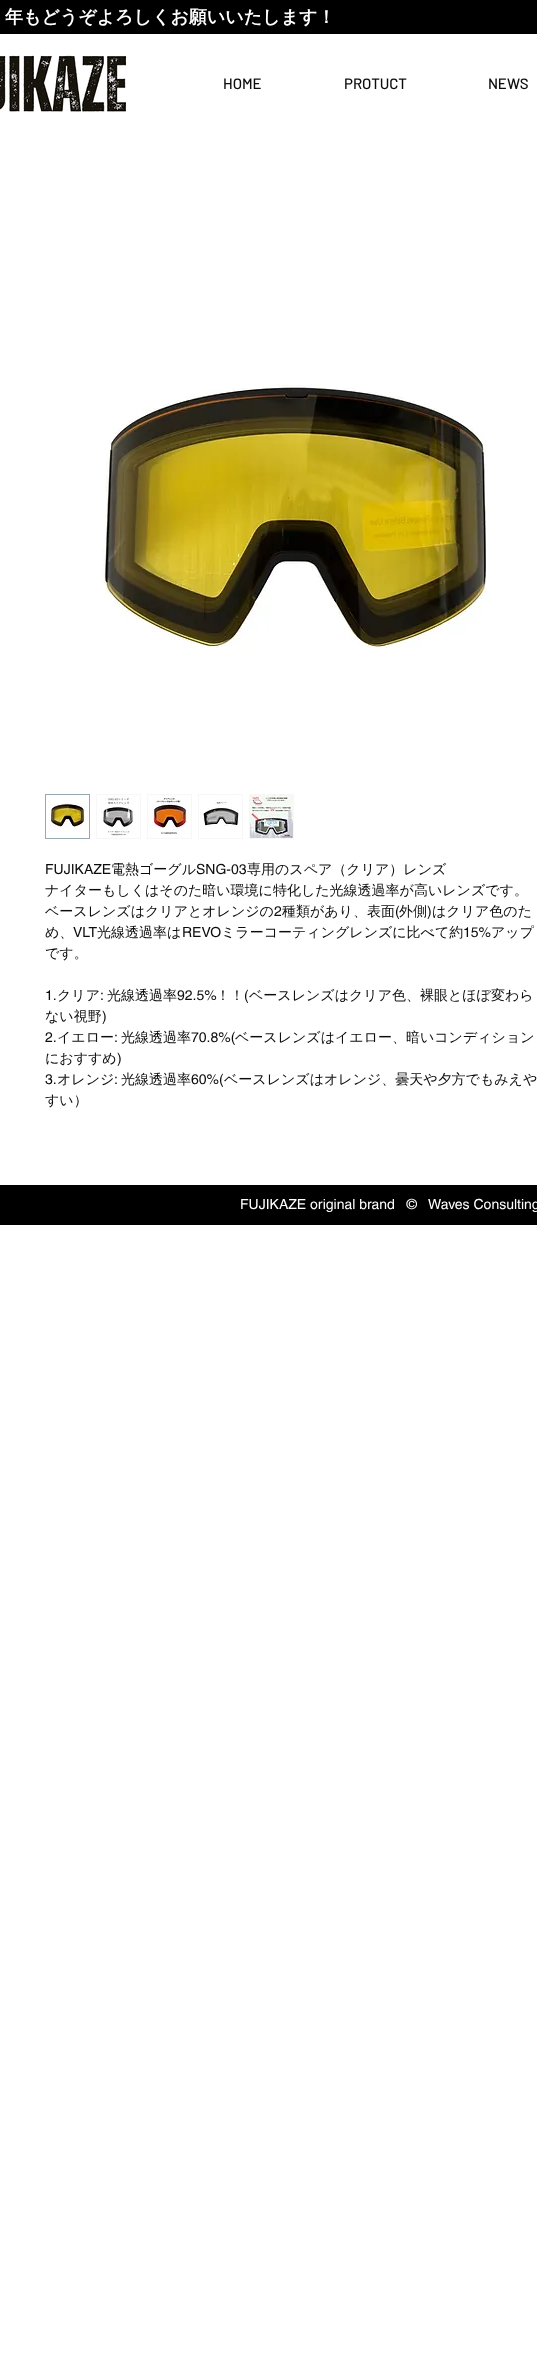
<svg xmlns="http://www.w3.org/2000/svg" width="537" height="2368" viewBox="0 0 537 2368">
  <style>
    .t1 { font: bold 18px WenQuanYi Zen Hei; fill: #fff; }
    .t2 { font: 500 15px Barlow; fill: #0c0c0d; }
    .t3 { font: 14px helvetica; fill: #0c0c0d; }
    .t4 { font: 500 14px WenQuanYi Zen Hei; fill: #0c0c0d; }
    .t5 { font: 14px helvetica; fill: #fff; }
  </style>
  <rect width="100%" height="100%" fill="#fff"/>
  <rect x="0" y="0" width="537" height="34" fill="#000"/>
  <text x="5" y="23" class="t1">年もどうぞよろしくお願いいたします！</text>
  <image x="0" y="55" width="127" height="57" href="images/1.png"/>
  <text x="223" y="89" class="t2">HOME</text>
  <text x="344" y="89" class="t2">PROTUCT</text>
  <text x="488" y="89" class="t2">NEWS</text>
  <image x="102" y="384" width="385" height="264" href="images/2.png"/>
  <rect x="45.5" y="794.5" width="44" height="44" fill="none" stroke="#95a9af"/>
  <image x="46" y="795" width="43" height="43" href="images/3.png"/>
  <rect x="96" y="794" width="45" height="45" fill="#f7f7f7"/>
  <image x="97" y="795" width="43" height="43" href="images/4.png"/>
  <rect x="147" y="794" width="45" height="45" fill="#f7f7f7"/>
  <image x="148" y="795" width="43" height="43" href="images/5.png"/>
  <rect x="198" y="794" width="45" height="45" fill="#f7f7f7"/>
  <image x="199" y="795" width="43" height="43" href="images/6.png"/>
  <rect x="249" y="794" width="45" height="45" fill="#f7f7f7"/>
  <image x="250" y="795" width="43" height="43" href="images/7.png"/>
  <text x="45" y="874" class="t3">FUJIKAZE</text>
  <text x="111" y="874" class="t4">電熱ゴーグル</text>
  <text x="196" y="874" class="t3">SNG-03</text>
  <text x="247" y="874" class="t4">専用のスペア（クリア）レンズ</text>
  <text x="45" y="895" class="t4">ナイターもしくはそのた暗い環境に特化した光線透過率が高いレンズです。</text>
  <text x="45" y="916" class="t4">ベースレンズはクリアとオレンジの</text>
  <text x="274" y="916" class="t3">2</text>
  <text x="282" y="916" class="t4">種類があり、表面</text>
  <text x="395" y="916" class="t3">(</text>
  <text x="399" y="916" class="t4">外側</text>
  <text x="427" y="916" class="t3">)</text>
  <text x="432" y="916" class="t4">はクリア色のた</text>
  <text x="45" y="937" class="t4">め、</text>
  <text x="73" y="937" class="t3">VLT</text>
  <text x="97" y="937" class="t4">光線透過率は</text>
  <text x="182" y="937" class="t3">REVO</text>
  <text x="221" y="937" class="t4">ミラーコーティングレンズに比べて約</text>
  <text x="463" y="937" class="t3">15%</text>
  <text x="491" y="937" class="t4">アップ</text>
  <text x="45" y="958" class="t4">です。</text>
  <text x="45" y="1000" class="t3">1.</text>
  <text x="57" y="1000" class="t4">クリア</text>
  <text x="100" y="1000" class="t3">:</text>
  <text x="107" y="1000" class="t4">光線透過率</text>
  <text x="177" y="1000" class="t3">92.5%</text>
  <text x="216" y="1000" class="t4">！！</text>
  <text x="244" y="1000" class="t3">(</text>
  <text x="249" y="1000" class="t4">ベースレンズはクリア色、裸眼とほぼ変わら</text>
  <text x="45" y="1021" class="t4">ない視野</text>
  <text x="102" y="1021" class="t3">)</text>
  <text x="45" y="1042" class="t3">2.</text>
  <text x="57" y="1042" class="t4">イエロー</text>
  <text x="114" y="1042" class="t3">:</text>
  <text x="121" y="1042" class="t4">光線透過率</text>
  <text x="191" y="1042" class="t3">70.8%(</text>
  <text x="235" y="1042" class="t4">ベースレンズはイエロー、暗いコンディション</text>
  <text x="45" y="1063" class="t4">におすすめ</text>
  <text x="117" y="1063" class="t3">)</text>
  <text x="45" y="1084" class="t3">3.</text>
  <text x="57" y="1084" class="t4">オレンジ</text>
  <text x="114" y="1084" class="t3">:</text>
  <text x="121" y="1084" class="t4">光線透過率</text>
  <text x="191" y="1084" class="t3">60%(</text>
  <text x="224" y="1084" class="t4">ベースレンズはオレンジ、曇天や夕方でもみえや</text>
  <text x="45" y="1105" class="t4">すい）</text>
  <rect x="0" y="1185" width="537" height="40" fill="#000"/>
  <text x="240" y="1209" class="t5" xml:space="preserve">FUJIKAZE original brand   ©   Waves Consulting</text>
</svg>
